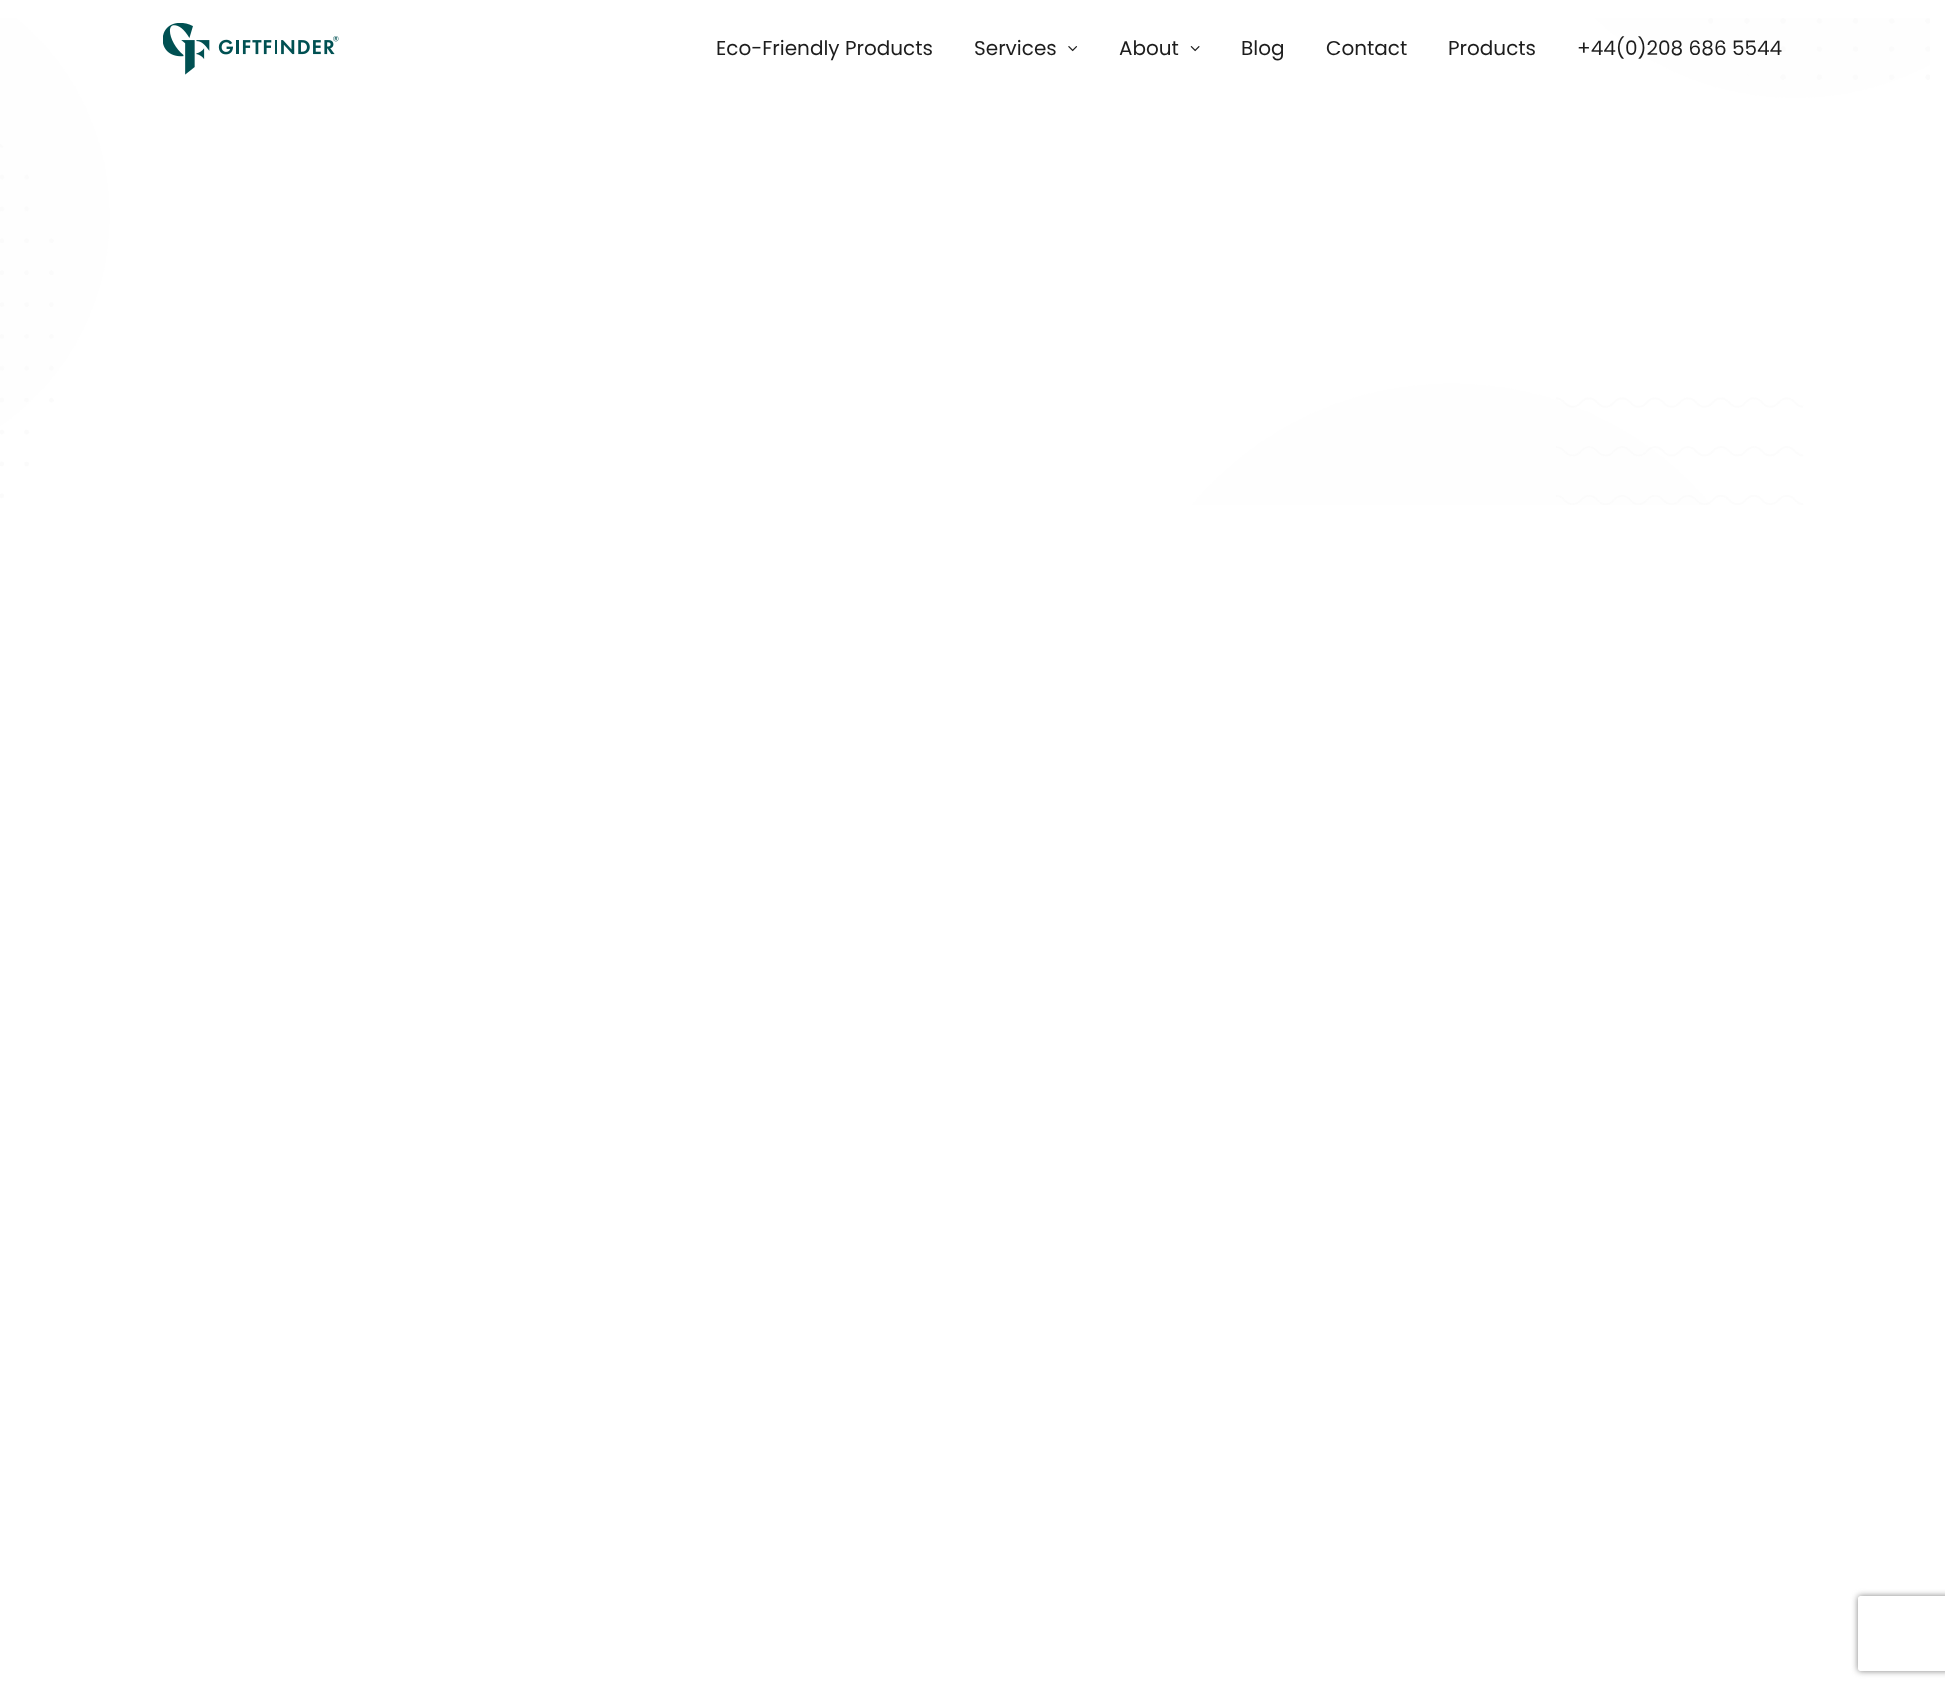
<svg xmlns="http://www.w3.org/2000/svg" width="1945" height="1688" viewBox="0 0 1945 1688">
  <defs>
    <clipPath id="clip1"><path d="M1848 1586H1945V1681H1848ZM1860.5 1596H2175.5C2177 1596 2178 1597 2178 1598.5V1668.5C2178 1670 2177 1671 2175.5 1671H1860.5C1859 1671 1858 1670 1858 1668.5V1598.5C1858 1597 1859 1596 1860.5 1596Z" clip-rule="evenodd"/></clipPath>
  </defs>
  <rect width="100%" height="100%" fill="#fff"/>
  <image x="0" y="18" width="1930" height="487" href="img/1.png"/>
  <image x="163" y="23" width="176" height="52" href="img/2.png"/>
  <image x="1068" y="46" width="10" height="6" href="img/3.png"/>
  <image x="1190" y="46" width="10" height="6" href="img/4.png"/>
  <g clip-path="url(#clip1)">
    <rect x="1858" y="1596" width="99" height="75" rx="2.5" fill="#808080" filter="blur(3px)"/>
  </g>
  <g font-family="Poppins" font-size="20" fill="#1d1d1d">
    <text x="716" y="55">Eco-Friendly Products</text>
    <text x="974" y="55">Services</text>
    <text x="1119" y="55">About</text>
    <text x="1241" y="55">Blog</text>
    <text x="1326" y="55">Contact</text>
    <text x="1448" y="55">Products</text>
    <text x="1577" y="55">+44(0)208 686 5544</text>
  </g>
</svg>
